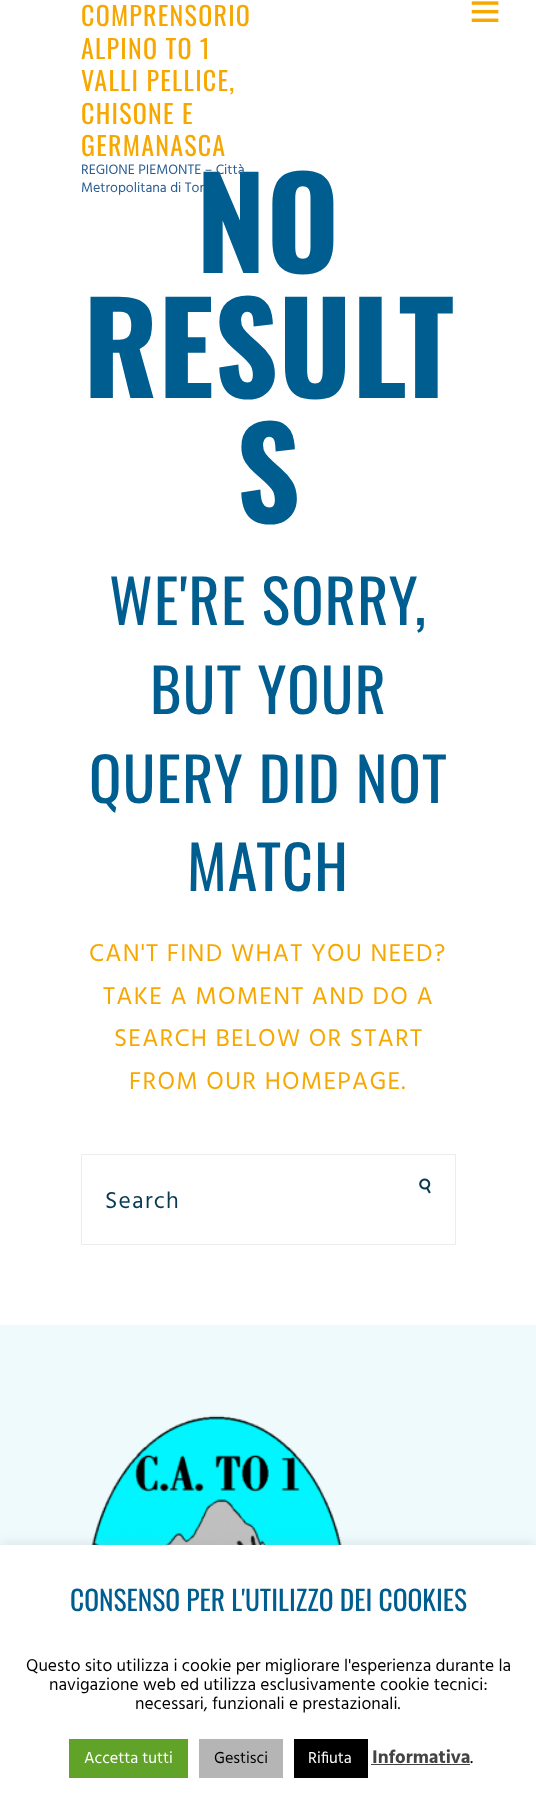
<svg xmlns="http://www.w3.org/2000/svg" width="536" height="1811" viewBox="0 0 536 1811">
  <rect width="100%" height="100%" fill="#fff"/>
  <image x="471" y="1" width="28" height="21" href="img/1.png"/>
  <path d="M81.5 1154.5h374v90H81.5z" fill="none" stroke="#edecec"/>
  <image x="419" y="1178" width="12" height="16" href="img/2.png"/>
  <path d="M0 1325h536v220H0z" fill="#effafd"/>
  <image x="91" y="1415" width="251" height="130" href="img/3.png"/>
  <path d="M0 1544h536v266H0z" fill="#acabab4d" filter="blur(6px)"/>
  <path d="M0 1545h536v266H0z" fill="#fff"/>
  <path d="M69 1739h119v39H69z" fill="#61a229"/>
  <path d="M199 1739h84v39H199z" fill="#b5b5b5"/>
  <path d="M294 1739h74v39H294z" fill="#000"/>
  <path d="M371 1764h99v1H371z" fill="#444"/>
  <g font-family="Oswald" font-size="26" letter-spacing="1.25" fill="#f7a800">
    <text x="81" y="26">COMPRENSORIO</text>
    <text x="81" y="59">ALPINO TO 1</text>
    <text x="81" y="91">VALLI PELLICE,</text>
    <text x="81" y="124">CHISONE E</text>
    <text x="81" y="156">GERMANASCA</text>
  </g>
  <text x="196" y="273" font-family="Oswald" font-size="125" font-weight="bold" fill="#005d8f">NO</text>
  <g font-family="Hind" font-size="14" fill="#295d90">
    <text x="81" y="192">Metropolitana di Tor</text>
    <text x="81" y="174">REGIONE PIEMONTE – Città</text>
  </g>
  <g font-family="Oswald" font-size="125" font-weight="bold" fill="#005d8f">
    <text x="83" y="398">RESULT</text>
    <text x="236" y="523">S</text>
  </g>
  <g font-family="Oswald" font-size="60" letter-spacing="1.25" fill="#005d8f">
    <text x="109" y="625">WE'RE SORRY,</text>
    <text x="150" y="714">BUT YOUR</text>
    <text x="89" y="803">QUERY DID NOT</text>
    <text x="187" y="891">MATCH</text>
  </g>
  <g font-family="Hind" font-size="25" letter-spacing="1.25" fill="#f7a800">
    <text x="89" y="961">CAN'T FIND WHAT YOU NEED?</text>
    <text x="103" y="1004">TAKE A MOMENT AND DO A</text>
    <text x="114" y="1046">SEARCH BELOW OR START</text>
    <text x="129" y="1089">FROM OUR HOMEPAGE.</text>
  </g>
  <text x="105" y="1208" font-family="Hind" font-size="23.5" letter-spacing="1.25" fill="#093a54">Search</text>
  <text x="70" y="1611" font-family="Oswald" font-size="27.5" fill="#005d8f">CONSENSO PER L'UTILIZZO DEI COOKIES</text>
  <g font-family="Hind" font-size="17.5" fill="#000">
    <text x="26" y="1671">Questo sito utilizza i cookie per migliorare l'esperienza durante la</text>
    <text x="49" y="1690">navigazione web ed utilizza esclusivamente cookie tecnici:</text>
    <text x="135" y="1709">necessari, funzionali e prestazionali.</text>
  </g>
  <text x="84" y="1763" font-family="Hind" font-size="16.25" fill="#fff">Accetta tutti</text>
  <text x="214" y="1763" font-family="Hind" font-size="16.25" fill="#000">Gestisci</text>
  <text x="308" y="1763" font-family="Hind" font-size="16.25" fill="#fff">Rifiuta</text>
  <text x="372" y="1763" font-family="Hind" font-size="18.75" font-weight="bold" fill="#444">Informativa</text>
  <text x="470" y="1763" font-family="Hind" font-size="18.75" fill="#000">.</text>
</svg>
